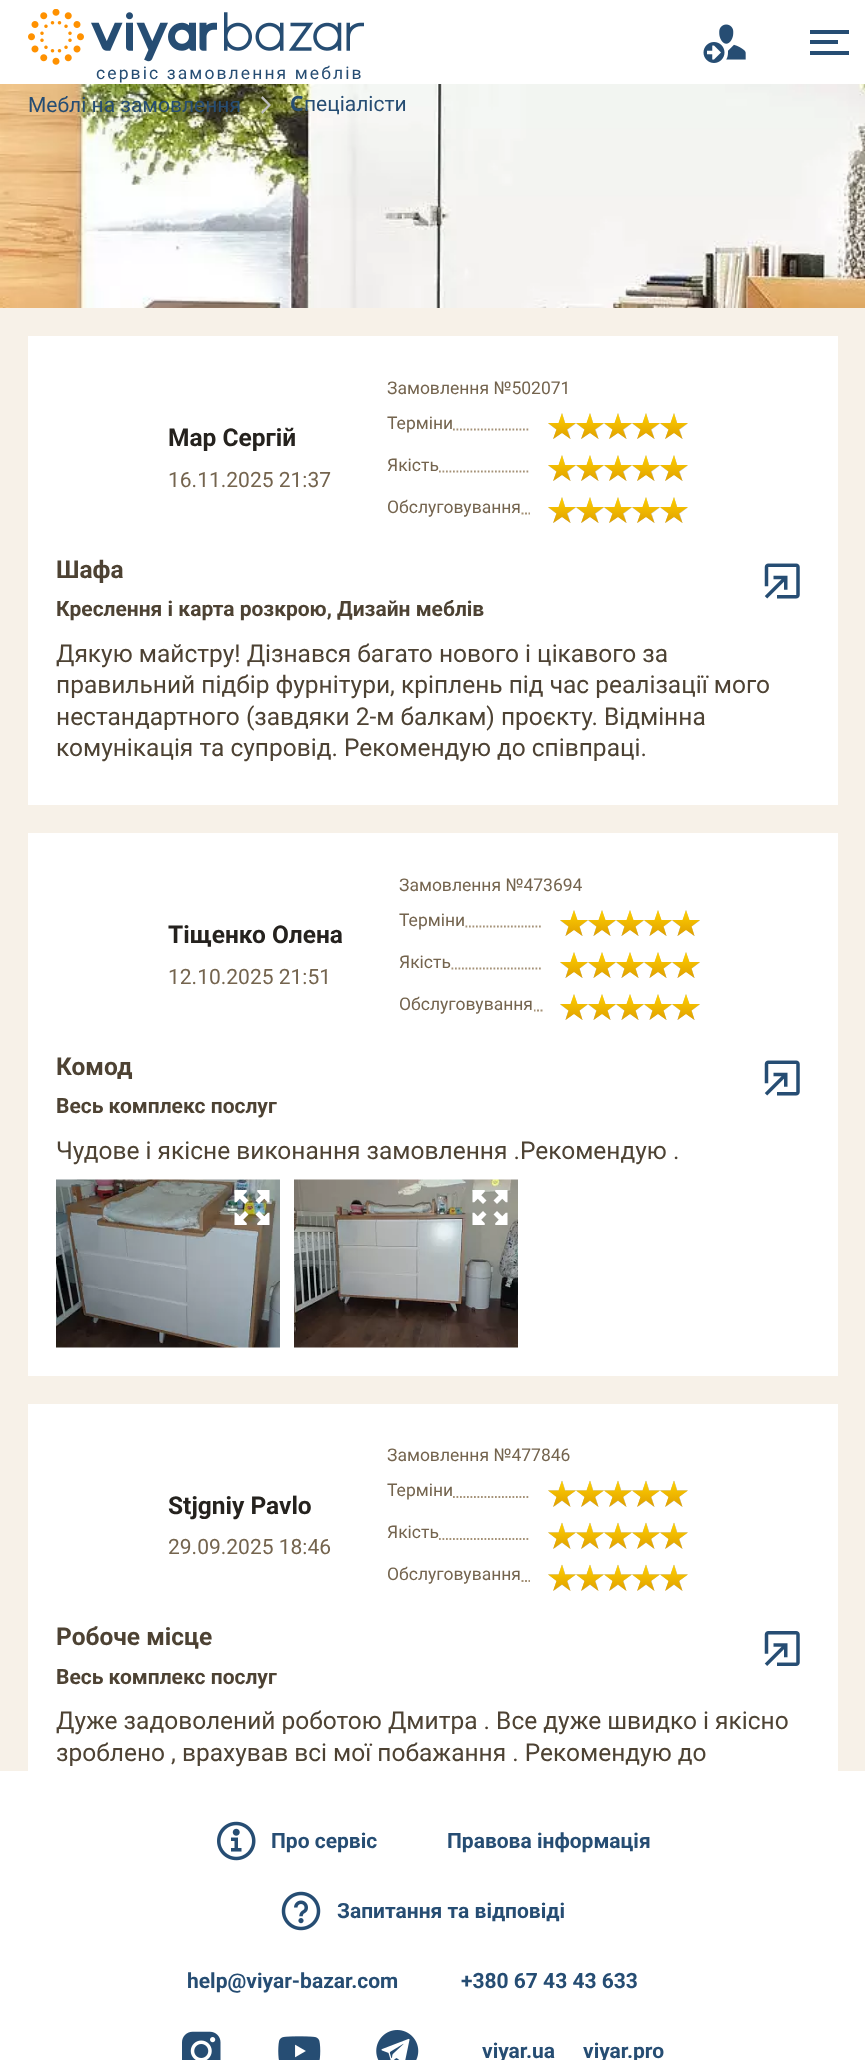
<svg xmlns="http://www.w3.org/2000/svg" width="865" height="2060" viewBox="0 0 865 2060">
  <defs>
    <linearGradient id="g1" gradientUnits="userSpaceOnUse" x1="674" y1="413" x2="674" y2="439"><stop offset="0" stop-color="#ffd000"/><stop offset="1" stop-color="#e0a000"/></linearGradient>
    <linearGradient id="g2" gradientUnits="userSpaceOnUse" x1="646" y1="413" x2="646" y2="439"><stop offset="0" stop-color="#ffd000"/><stop offset="1" stop-color="#e0a000"/></linearGradient>
    <linearGradient id="g3" gradientUnits="userSpaceOnUse" x1="618" y1="413" x2="618" y2="439"><stop offset="0" stop-color="#ffd000"/><stop offset="1" stop-color="#e0a000"/></linearGradient>
    <linearGradient id="g4" gradientUnits="userSpaceOnUse" x1="590" y1="413" x2="590" y2="439"><stop offset="0" stop-color="#ffd000"/><stop offset="1" stop-color="#e0a000"/></linearGradient>
    <linearGradient id="g5" gradientUnits="userSpaceOnUse" x1="562" y1="413" x2="562" y2="439"><stop offset="0" stop-color="#ffd000"/><stop offset="1" stop-color="#e0a000"/></linearGradient>
    <linearGradient id="g6" gradientUnits="userSpaceOnUse" x1="674" y1="455" x2="674" y2="481"><stop offset="0" stop-color="#ffd000"/><stop offset="1" stop-color="#e0a000"/></linearGradient>
    <linearGradient id="g7" gradientUnits="userSpaceOnUse" x1="646" y1="455" x2="646" y2="481"><stop offset="0" stop-color="#ffd000"/><stop offset="1" stop-color="#e0a000"/></linearGradient>
    <linearGradient id="g8" gradientUnits="userSpaceOnUse" x1="618" y1="455" x2="618" y2="481"><stop offset="0" stop-color="#ffd000"/><stop offset="1" stop-color="#e0a000"/></linearGradient>
    <linearGradient id="g9" gradientUnits="userSpaceOnUse" x1="590" y1="455" x2="590" y2="481"><stop offset="0" stop-color="#ffd000"/><stop offset="1" stop-color="#e0a000"/></linearGradient>
    <linearGradient id="g10" gradientUnits="userSpaceOnUse" x1="562" y1="455" x2="562" y2="481"><stop offset="0" stop-color="#ffd000"/><stop offset="1" stop-color="#e0a000"/></linearGradient>
    <linearGradient id="g11" gradientUnits="userSpaceOnUse" x1="674" y1="497" x2="674" y2="523"><stop offset="0" stop-color="#ffd000"/><stop offset="1" stop-color="#e0a000"/></linearGradient>
    <linearGradient id="g12" gradientUnits="userSpaceOnUse" x1="646" y1="497" x2="646" y2="523"><stop offset="0" stop-color="#ffd000"/><stop offset="1" stop-color="#e0a000"/></linearGradient>
    <linearGradient id="g13" gradientUnits="userSpaceOnUse" x1="618" y1="497" x2="618" y2="523"><stop offset="0" stop-color="#ffd000"/><stop offset="1" stop-color="#e0a000"/></linearGradient>
    <linearGradient id="g14" gradientUnits="userSpaceOnUse" x1="590" y1="497" x2="590" y2="523"><stop offset="0" stop-color="#ffd000"/><stop offset="1" stop-color="#e0a000"/></linearGradient>
    <linearGradient id="g15" gradientUnits="userSpaceOnUse" x1="562" y1="497" x2="562" y2="523"><stop offset="0" stop-color="#ffd000"/><stop offset="1" stop-color="#e0a000"/></linearGradient>
    <linearGradient id="g16" gradientUnits="userSpaceOnUse" x1="686" y1="910" x2="686" y2="936"><stop offset="0" stop-color="#ffd000"/><stop offset="1" stop-color="#e0a000"/></linearGradient>
    <linearGradient id="g17" gradientUnits="userSpaceOnUse" x1="658" y1="910" x2="658" y2="936"><stop offset="0" stop-color="#ffd000"/><stop offset="1" stop-color="#e0a000"/></linearGradient>
    <linearGradient id="g18" gradientUnits="userSpaceOnUse" x1="630" y1="910" x2="630" y2="936"><stop offset="0" stop-color="#ffd000"/><stop offset="1" stop-color="#e0a000"/></linearGradient>
    <linearGradient id="g19" gradientUnits="userSpaceOnUse" x1="602" y1="910" x2="602" y2="936"><stop offset="0" stop-color="#ffd000"/><stop offset="1" stop-color="#e0a000"/></linearGradient>
    <linearGradient id="g20" gradientUnits="userSpaceOnUse" x1="574" y1="910" x2="574" y2="936"><stop offset="0" stop-color="#ffd000"/><stop offset="1" stop-color="#e0a000"/></linearGradient>
    <linearGradient id="g21" gradientUnits="userSpaceOnUse" x1="686" y1="952" x2="686" y2="978"><stop offset="0" stop-color="#ffd000"/><stop offset="1" stop-color="#e0a000"/></linearGradient>
    <linearGradient id="g22" gradientUnits="userSpaceOnUse" x1="658" y1="952" x2="658" y2="978"><stop offset="0" stop-color="#ffd000"/><stop offset="1" stop-color="#e0a000"/></linearGradient>
    <linearGradient id="g23" gradientUnits="userSpaceOnUse" x1="630" y1="952" x2="630" y2="978"><stop offset="0" stop-color="#ffd000"/><stop offset="1" stop-color="#e0a000"/></linearGradient>
    <linearGradient id="g24" gradientUnits="userSpaceOnUse" x1="602" y1="952" x2="602" y2="978"><stop offset="0" stop-color="#ffd000"/><stop offset="1" stop-color="#e0a000"/></linearGradient>
    <linearGradient id="g25" gradientUnits="userSpaceOnUse" x1="574" y1="952" x2="574" y2="978"><stop offset="0" stop-color="#ffd000"/><stop offset="1" stop-color="#e0a000"/></linearGradient>
    <linearGradient id="g26" gradientUnits="userSpaceOnUse" x1="686" y1="994" x2="686" y2="1020"><stop offset="0" stop-color="#ffd000"/><stop offset="1" stop-color="#e0a000"/></linearGradient>
    <linearGradient id="g27" gradientUnits="userSpaceOnUse" x1="658" y1="994" x2="658" y2="1020"><stop offset="0" stop-color="#ffd000"/><stop offset="1" stop-color="#e0a000"/></linearGradient>
    <linearGradient id="g28" gradientUnits="userSpaceOnUse" x1="630" y1="994" x2="630" y2="1020"><stop offset="0" stop-color="#ffd000"/><stop offset="1" stop-color="#e0a000"/></linearGradient>
    <linearGradient id="g29" gradientUnits="userSpaceOnUse" x1="602" y1="994" x2="602" y2="1020"><stop offset="0" stop-color="#ffd000"/><stop offset="1" stop-color="#e0a000"/></linearGradient>
    <linearGradient id="g30" gradientUnits="userSpaceOnUse" x1="574" y1="994" x2="574" y2="1020"><stop offset="0" stop-color="#ffd000"/><stop offset="1" stop-color="#e0a000"/></linearGradient>
    <linearGradient id="g31" gradientUnits="userSpaceOnUse" x1="674" y1="1481" x2="674" y2="1507"><stop offset="0" stop-color="#ffd000"/><stop offset="1" stop-color="#e0a000"/></linearGradient>
    <linearGradient id="g32" gradientUnits="userSpaceOnUse" x1="646" y1="1481" x2="646" y2="1507"><stop offset="0" stop-color="#ffd000"/><stop offset="1" stop-color="#e0a000"/></linearGradient>
    <linearGradient id="g33" gradientUnits="userSpaceOnUse" x1="618" y1="1481" x2="618" y2="1507"><stop offset="0" stop-color="#ffd000"/><stop offset="1" stop-color="#e0a000"/></linearGradient>
    <linearGradient id="g34" gradientUnits="userSpaceOnUse" x1="590" y1="1481" x2="590" y2="1507"><stop offset="0" stop-color="#ffd000"/><stop offset="1" stop-color="#e0a000"/></linearGradient>
    <linearGradient id="g35" gradientUnits="userSpaceOnUse" x1="562" y1="1481" x2="562" y2="1507"><stop offset="0" stop-color="#ffd000"/><stop offset="1" stop-color="#e0a000"/></linearGradient>
    <linearGradient id="g36" gradientUnits="userSpaceOnUse" x1="674" y1="1523" x2="674" y2="1549"><stop offset="0" stop-color="#ffd000"/><stop offset="1" stop-color="#e0a000"/></linearGradient>
    <linearGradient id="g37" gradientUnits="userSpaceOnUse" x1="646" y1="1523" x2="646" y2="1549"><stop offset="0" stop-color="#ffd000"/><stop offset="1" stop-color="#e0a000"/></linearGradient>
    <linearGradient id="g38" gradientUnits="userSpaceOnUse" x1="618" y1="1523" x2="618" y2="1549"><stop offset="0" stop-color="#ffd000"/><stop offset="1" stop-color="#e0a000"/></linearGradient>
    <linearGradient id="g39" gradientUnits="userSpaceOnUse" x1="590" y1="1523" x2="590" y2="1549"><stop offset="0" stop-color="#ffd000"/><stop offset="1" stop-color="#e0a000"/></linearGradient>
    <linearGradient id="g40" gradientUnits="userSpaceOnUse" x1="562" y1="1523" x2="562" y2="1549"><stop offset="0" stop-color="#ffd000"/><stop offset="1" stop-color="#e0a000"/></linearGradient>
    <linearGradient id="g41" gradientUnits="userSpaceOnUse" x1="674" y1="1565" x2="674" y2="1591"><stop offset="0" stop-color="#ffd000"/><stop offset="1" stop-color="#e0a000"/></linearGradient>
    <linearGradient id="g42" gradientUnits="userSpaceOnUse" x1="646" y1="1565" x2="646" y2="1591"><stop offset="0" stop-color="#ffd000"/><stop offset="1" stop-color="#e0a000"/></linearGradient>
    <linearGradient id="g43" gradientUnits="userSpaceOnUse" x1="618" y1="1565" x2="618" y2="1591"><stop offset="0" stop-color="#ffd000"/><stop offset="1" stop-color="#e0a000"/></linearGradient>
    <linearGradient id="g44" gradientUnits="userSpaceOnUse" x1="590" y1="1565" x2="590" y2="1591"><stop offset="0" stop-color="#ffd000"/><stop offset="1" stop-color="#e0a000"/></linearGradient>
    <linearGradient id="g45" gradientUnits="userSpaceOnUse" x1="562" y1="1565" x2="562" y2="1591"><stop offset="0" stop-color="#ffd000"/><stop offset="1" stop-color="#e0a000"/></linearGradient>
  </defs>
  <rect width="100%" height="100%" fill="#fff"/>
  <image x="703" y="24" width="43" height="39" href="img/1.png"/>
  <path d="M810 30h39v4H810z" fill="#264d73"/>
  <path d="M810 40h28v4H810z" fill="#264d73"/>
  <path d="M810 51h39v4H810z" fill="#264d73"/>
  <image x="28" y="9" width="336" height="56" href="img/2.png"/>
  <image x="0" y="84" width="865" height="224" href="img/3.png"/>
  <path d="M262.5 96L261 98L268 105L261 112L262.5 114L271 105Z" fill="#c0c0c0"/>
  <path d="M0 308h865v1463H0z" fill="#f7f1e8"/>
  <path d="M28 336h810v469H28z" fill="#fff"/>
  <path d="M453 429.5H530" fill="none" stroke="#a59278" stroke-width="1.8" stroke-dasharray="1.75 1.75"/>
  <image x="548" y="413" width="140" height="26" href="img/4.png"/>
  <path d="M674 413L677 423H688L679 429.5L682.5 439L674 433L665 439L668.5 429.5L660 423H670.5Z" fill="url(#g1)"/>
  <path d="M646 413L649 423H660L651 429.5L654.5 439L646 433L637 439L640.5 429.5L632 423H642.5Z" fill="url(#g2)"/>
  <path d="M618 413L621 423H632L623 429.5L626.5 439L618 433L609 439L612.5 429.5L604 423H614.5Z" fill="url(#g3)"/>
  <path d="M590 413L593 423H604L595 429.5L598.5 439L590 433L581 439L584.5 429.5L576 423H586.5Z" fill="url(#g4)"/>
  <path d="M562 413L565 423H576L567 429.5L570.5 439L562 433L553 439L556.5 429.5L548 423H558.5Z" fill="url(#g5)"/>
  <path d="M439 471.5H530" fill="none" stroke="#a59278" stroke-width="1.8" stroke-dasharray="1.75 1.75"/>
  <image x="548" y="455" width="140" height="26" href="img/4.png"/>
  <path d="M674 455L677 465H688L679 471.5L682.5 481L674 475L665 481L668.5 471.5L660 465H670.5Z" fill="url(#g6)"/>
  <path d="M646 455L649 465H660L651 471.5L654.5 481L646 475L637 481L640.5 471.5L632 465H642.5Z" fill="url(#g7)"/>
  <path d="M618 455L621 465H632L623 471.5L626.5 481L618 475L609 481L612.5 471.5L604 465H614.5Z" fill="url(#g8)"/>
  <path d="M590 455L593 465H604L595 471.5L598.5 481L590 475L581 481L584.5 471.5L576 465H586.5Z" fill="url(#g9)"/>
  <path d="M562 455L565 465H576L567 471.5L570.5 481L562 475L553 481L556.5 471.5L548 465H558.5Z" fill="url(#g10)"/>
  <path d="M521.5 513.5H523.5M525 513.5H527M528.5 513.5H530" fill="none" stroke="#a59278" stroke-width="1.8"/>
  <image x="548" y="497" width="140" height="26" href="img/4.png"/>
  <path d="M674 497L677 507H688L679 513.5L682.5 523L674 517L665 523L668.5 513.5L660 507H670.5Z" fill="url(#g11)"/>
  <path d="M646 497L649 507H660L651 513.5L654.5 523L646 517L637 523L640.5 513.5L632 507H642.5Z" fill="url(#g12)"/>
  <path d="M618 497L621 507H632L623 513.5L626.5 523L618 517L609 523L612.5 513.5L604 507H614.5Z" fill="url(#g13)"/>
  <path d="M590 497L593 507H604L595 513.5L598.5 523L590 517L581 523L584.5 513.5L576 507H586.5Z" fill="url(#g14)"/>
  <path d="M562 497L565 507H576L567 513.5L570.5 523L562 517L553 523L556.5 513.5L548 507H558.5Z" fill="url(#g15)"/>
  <image x="764" y="563" width="36" height="36" href="img/5.png"/>
  <path d="M28 833h810v543H28z" fill="#fff"/>
  <path d="M465.5 926.5H542.5" fill="none" stroke="#a59278" stroke-width="1.8" stroke-dasharray="1.75 1.75"/>
  <image x="560" y="910" width="140" height="26" href="img/6.png"/>
  <path d="M686 910L689.5 920H700L691.5 926.5L694.5 936L686 930L677.5 936L680.5 926.5L672 920H682.5Z" fill="url(#g16)"/>
  <path d="M658 910L661.5 920H672L663.5 926.5L666.5 936L658 930L649.5 936L652.5 926.5L644 920H654.5Z" fill="url(#g17)"/>
  <path d="M630 910L633.5 920H644L635.5 926.5L638.5 936L630 930L621.5 936L624.5 926.5L616 920H626.5Z" fill="url(#g18)"/>
  <path d="M602 910L605.5 920H616L607.5 926.5L610.5 936L602 930L593.5 936L596.5 926.5L588 920H598.5Z" fill="url(#g19)"/>
  <path d="M574 910L577.5 920H588L579.5 926.5L582.5 936L574 930L565.5 936L568.5 926.5L560 920H570.5Z" fill="url(#g20)"/>
  <path d="M451.5 968.5H542.5" fill="none" stroke="#a59278" stroke-width="1.8" stroke-dasharray="1.75 1.75"/>
  <image x="560" y="952" width="140" height="26" href="img/6.png"/>
  <path d="M686 952L689.5 962H700L691.5 968.5L694.5 978L686 972L677.5 978L680.5 968.5L672 962H682.5Z" fill="url(#g21)"/>
  <path d="M658 952L661.5 962H672L663.5 968.5L666.5 978L658 972L649.5 978L652.5 968.5L644 962H654.5Z" fill="url(#g22)"/>
  <path d="M630 952L633.5 962H644L635.5 968.5L638.5 978L630 972L621.5 978L624.5 968.5L616 962H626.5Z" fill="url(#g23)"/>
  <path d="M602 952L605.5 962H616L607.5 968.5L610.5 978L602 972L593.5 978L596.5 968.5L588 962H598.5Z" fill="url(#g24)"/>
  <path d="M574 952L577.5 962H588L579.5 968.5L582.5 978L574 972L565.5 978L568.5 968.5L560 962H570.5Z" fill="url(#g25)"/>
  <path d="M534 1010.5H535.5M537 1010.5H539M540.5 1010.5H542.5" fill="none" stroke="#a59278" stroke-width="1.8"/>
  <image x="560" y="994" width="140" height="26" href="img/6.png"/>
  <path d="M686 994L689.5 1004H700L691.5 1010.5L694.5 1020L686 1014L677.5 1020L680.5 1010.5L672 1004H682.5Z" fill="url(#g26)"/>
  <path d="M658 994L661.5 1004H672L663.5 1010.5L666.5 1020L658 1014L649.5 1020L652.5 1010.5L644 1004H654.5Z" fill="url(#g27)"/>
  <path d="M630 994L633.5 1004H644L635.5 1010.5L638.5 1020L630 1014L621.5 1020L624.5 1010.5L616 1004H626.5Z" fill="url(#g28)"/>
  <path d="M602 994L605.5 1004H616L607.5 1010.5L610.5 1020L602 1014L593.5 1020L596.5 1010.5L588 1004H598.5Z" fill="url(#g29)"/>
  <path d="M574 994L577.5 1004H588L579.5 1010.5L582.5 1020L574 1014L565.5 1020L568.5 1010.5L560 1004H570.5Z" fill="url(#g30)"/>
  <image x="764" y="1060" width="36" height="36" href="img/5.png"/>
  <image x="56" y="1179" width="224" height="169" href="img/7.png"/>
  <image x="234" y="1190" width="36" height="35" href="img/8.png"/>
  <image x="294" y="1179" width="224" height="169" href="img/9.png"/>
  <image x="472" y="1190" width="36" height="35" href="img/10.png"/>
  <path d="M28 1404h810v367H28z" fill="#fff"/>
  <path d="M453 1497H530" fill="none" stroke="#a59278" stroke-width="1.8" stroke-dasharray="1.75 1.75"/>
  <image x="548" y="1481" width="140" height="26" href="img/11.png"/>
  <path d="M674 1480.5L677 1490.5H688L679 1497L682.5 1507L674 1500.5L665 1507L668.5 1497L660 1490.5H670.5Z" fill="url(#g31)"/>
  <path d="M646 1480.5L649 1490.5H660L651 1497L654.5 1507L646 1500.5L637 1507L640.5 1497L632 1490.5H642.5Z" fill="url(#g32)"/>
  <path d="M618 1480.5L621 1490.5H632L623 1497L626.5 1507L618 1500.5L609 1507L612.5 1497L604 1490.5H614.5Z" fill="url(#g33)"/>
  <path d="M590 1480.5L593 1490.5H604L595 1497L598.5 1507L590 1500.5L581 1507L584.5 1497L576 1490.5H586.5Z" fill="url(#g34)"/>
  <path d="M562 1480.5L565 1490.5H576L567 1497L570.5 1507L562 1500.5L553 1507L556.5 1497L548 1490.5H558.5Z" fill="url(#g35)"/>
  <path d="M439 1539H530" fill="none" stroke="#a59278" stroke-width="1.8" stroke-dasharray="1.75 1.75"/>
  <image x="548" y="1523" width="140" height="26" href="img/11.png"/>
  <path d="M674 1522.5L677 1532.5H688L679 1539L682.5 1549L674 1542.5L665 1549L668.5 1539L660 1532.5H670.5Z" fill="url(#g36)"/>
  <path d="M646 1522.5L649 1532.5H660L651 1539L654.5 1549L646 1542.5L637 1549L640.5 1539L632 1532.5H642.5Z" fill="url(#g37)"/>
  <path d="M618 1522.5L621 1532.5H632L623 1539L626.5 1549L618 1542.5L609 1549L612.5 1539L604 1532.5H614.5Z" fill="url(#g38)"/>
  <path d="M590 1522.5L593 1532.5H604L595 1539L598.5 1549L590 1542.5L581 1549L584.5 1539L576 1532.5H586.5Z" fill="url(#g39)"/>
  <path d="M562 1522.5L565 1532.5H576L567 1539L570.5 1549L562 1542.5L553 1549L556.5 1539L548 1532.5H558.5Z" fill="url(#g40)"/>
  <path d="M521.5 1581H523.5M525 1581H527M528.5 1581H530" fill="none" stroke="#a59278" stroke-width="1.8"/>
  <image x="548" y="1565" width="140" height="26" href="img/11.png"/>
  <path d="M674 1564.5L677 1574.5H688L679 1581L682.5 1591L674 1584.5L665 1591L668.5 1581L660 1574.5H670.5Z" fill="url(#g41)"/>
  <path d="M646 1564.5L649 1574.5H660L651 1581L654.5 1591L646 1584.5L637 1591L640.5 1581L632 1574.5H642.5Z" fill="url(#g42)"/>
  <path d="M618 1564.5L621 1574.5H632L623 1581L626.5 1591L618 1584.5L609 1591L612.5 1581L604 1574.5H614.5Z" fill="url(#g43)"/>
  <path d="M590 1564.5L593 1574.5H604L595 1581L598.5 1591L590 1584.5L581 1591L584.5 1581L576 1574.5H586.5Z" fill="url(#g44)"/>
  <path d="M562 1564.5L565 1574.5H576L567 1581L570.5 1591L562 1584.5L553 1591L556.5 1581L548 1574.5H558.5Z" fill="url(#g45)"/>
  <image x="764" y="1631" width="36" height="35" href="img/12.png"/>
  <image x="217" y="1821" width="39" height="40" href="img/13.png"/>
  <image x="281" y="1891" width="40" height="40" href="img/14.png"/>
  <image x="182" y="2031" width="39" height="29" href="img/15.png"/>
  <image x="278" y="2036" width="43" height="24" href="img/16.png"/>
  <image x="376" y="2030" width="43" height="30" href="img/17.png"/>
  <text x="96" y="79" font-family="Roboto" font-size="17.5" letter-spacing="2.1" fill="#264d73">сервіс замовлення меблів</text>
  <text x="28" y="112" font-family="Roboto" font-size="21" fill="#264d73">Меблі на замовлення</text>
  <text x="290" y="111" font-family="Noto Sans" font-size="21" font-weight="bold" fill="#264d73">С</text>
  <text x="304" y="111" font-family="Roboto" font-size="21" fill="#264d73">пеціалісти</text>
  <text x="168" y="446" font-family="Roboto" font-size="24.5" font-weight="bold" fill="#25221e">Мар Сергій</text>
  <text x="168" y="487" font-family="Roboto" font-size="21" fill="#74644e">16.11.2025 21:37</text>
  <g font-family="Roboto" font-size="17.5" fill="#74644e">
    <text x="387" y="394">Замовлення №502071</text>
    <text x="387" y="429">Терміни</text>
    <text x="387" y="471">Якість</text>
    <text x="387" y="513">Обслуговування</text>
  </g>
  <text x="56" y="578" font-family="Roboto" font-size="24.5" font-weight="bold" fill="#4d4233">Шафа</text>
  <text x="56" y="616" font-family="Roboto" font-size="21" font-weight="bold" fill="#4d4233">Креслення і карта розкрою, Дизайн меблів</text>
  <g font-family="Roboto" font-size="24.5" fill="#4d4233">
    <text x="56" y="662">Дякую майстру! Дізнався багато нового і цікавого за</text>
    <text x="56" y="693">правильний підбір фурнітури, кріплень під час реалізації мого</text>
    <text x="56" y="725">нестандартного (завдяки 2-м балкам) проєкту. Відмінна</text>
    <text x="56" y="756">комунікація та супровід. Рекомендую до співпраці.</text>
  </g>
  <text x="168" y="943" font-family="Roboto" font-size="24.5" font-weight="bold" fill="#25221e">Тіщенко Олена</text>
  <text x="168" y="984" font-family="Roboto" font-size="21" fill="#74644e">12.10.2025 21:51</text>
  <g font-family="Roboto" font-size="17.5" fill="#74644e">
    <text x="399" y="891">Замовлення №473694</text>
    <text x="399" y="926">Терміни</text>
    <text x="399" y="968">Якість</text>
    <text x="399" y="1010">Обслуговування</text>
  </g>
  <text x="56" y="1075" font-family="Roboto" font-size="24.5" font-weight="bold" fill="#4d4233">Комод</text>
  <text x="56" y="1113" font-family="Roboto" font-size="21" font-weight="bold" fill="#4d4233">Весь комплекс послуг</text>
  <text x="56" y="1159" font-family="Roboto" font-size="24.5" fill="#4d4233">Чудове і якісне виконання замовлення .Рекомендую .</text>
  <text x="168" y="1514" font-family="Roboto" font-size="24.5" font-weight="bold" fill="#25221e">Stjgniy Pavlo</text>
  <text x="168" y="1554" font-family="Roboto" font-size="21" fill="#74644e">29.09.2025 18:46</text>
  <g font-family="Roboto" font-size="17.5" fill="#74644e">
    <text x="387" y="1461">Замовлення №477846</text>
    <text x="387" y="1496">Терміни</text>
    <text x="387" y="1538">Якість</text>
    <text x="387" y="1580">Обслуговування</text>
  </g>
  <text x="56" y="1645" font-family="Roboto" font-size="24.5" font-weight="bold" fill="#4d4233">Робоче місце</text>
  <text x="56" y="1684" font-family="Roboto" font-size="21" font-weight="bold" fill="#4d4233">Весь комплекс послуг</text>
  <g font-family="Roboto" font-size="24.5" fill="#4d4233">
    <text x="56" y="1729">Дуже задоволений роботою Дмитра . Все дуже швидко і якісно</text>
    <text x="56" y="1761">зроблено , врахував всі мої побажання . Рекомендую до</text>
  </g>
  <g font-family="Roboto" font-size="21" font-weight="bold" fill="#264d73">
    <text x="271" y="1848">Про сервіс</text>
    <text x="447" y="1848">Правова інформація</text>
    <text x="337" y="1918">Запитання та відповіді</text>
    <text x="187" y="1988">help@viyar-bazar.com</text>
    <text x="461" y="1988">+380 67 43 43 633</text>
    <text x="482" y="2058">viyar.ua</text>
    <text x="583" y="2058">viyar.pro</text>
  </g>
</svg>
